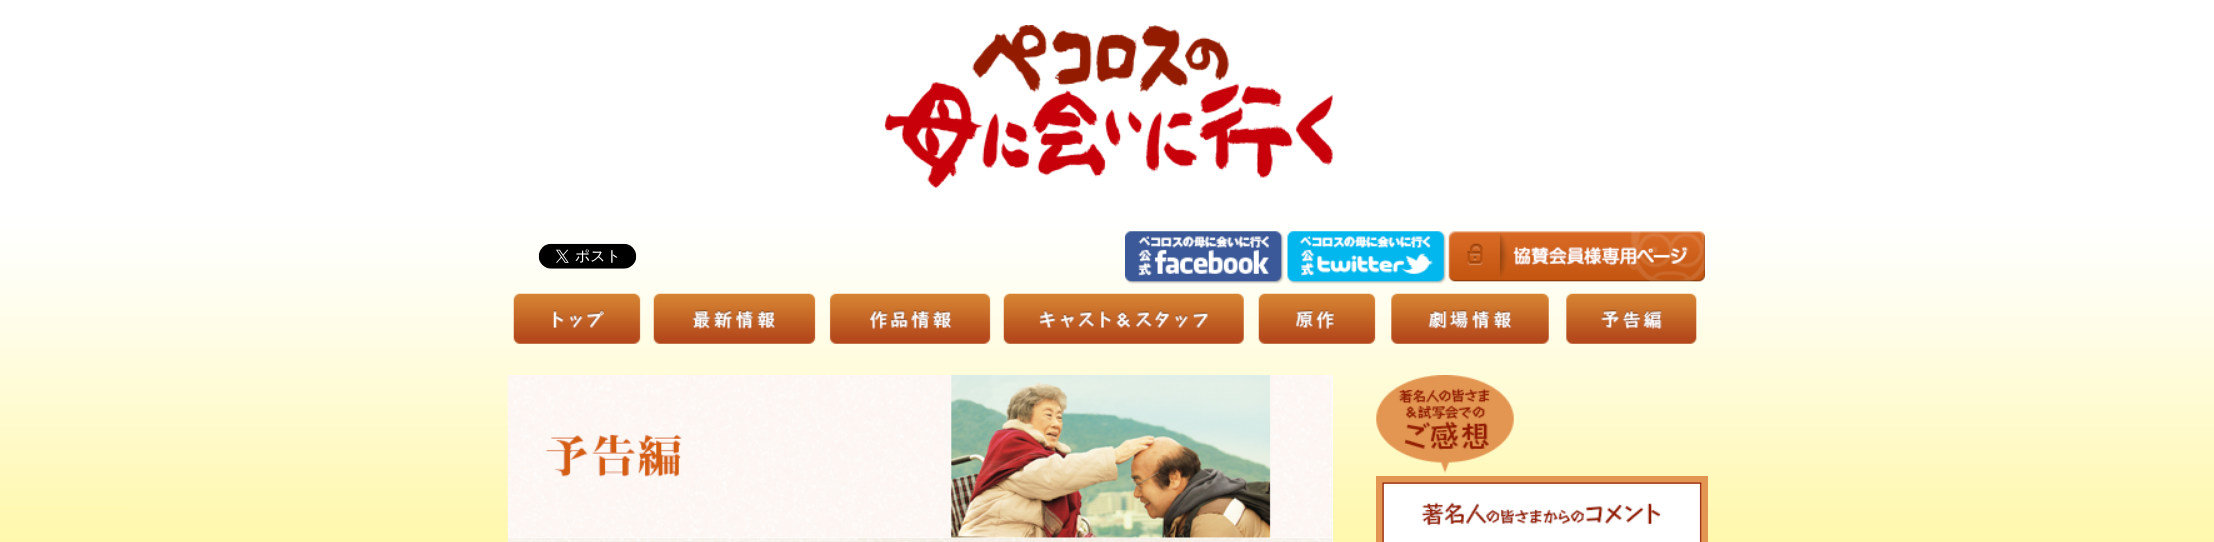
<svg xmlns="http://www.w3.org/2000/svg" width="2214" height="542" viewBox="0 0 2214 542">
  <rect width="100%" height="100%" fill="#fff"/>
  <image x="0" y="0" width="2214" height="542" href="img/1.png"/>
  <image x="884" y="25" width="449" height="163" href="img/2.png"/>
  <image x="538" y="243" width="99" height="26" href="img/3.png"/>
  <image x="1125" y="231" width="159" height="53" href="img/4.png"/>
  <image x="1287" y="231" width="159" height="53" href="img/5.png"/>
  <image x="1448" y="231" width="257" height="51" href="img/6.png"/>
  <image x="513" y="293" width="128" height="51" href="img/7.png"/>
  <image x="653" y="293" width="163" height="51" href="img/8.png"/>
  <image x="829" y="293" width="162" height="51" href="img/9.png"/>
  <image x="1003" y="293" width="241" height="51" href="img/10.png"/>
  <image x="1258" y="293" width="118" height="51" href="img/11.png"/>
  <image x="1391" y="293" width="158" height="51" href="img/12.png"/>
  <image x="1566" y="293" width="131" height="51" href="img/13.png"/>
  <path d="M1332 538h1v4H1332z" fill="#fff"/>
  <image x="507" y="537" width="826" height="5" href="img/14.png"/>
  <path d="M508 375h825v163H508z" fill="#fff"/>
  <image x="507" y="375" width="826" height="163" href="img/15.png"/>
  <image x="1376" y="375" width="138" height="98" href="img/16.png"/>
  <path d="M1376 476h332v66H1376z" fill="#e39552"/>
  <image x="1382" y="482" width="320" height="60" href="img/17.png"/>
</svg>
